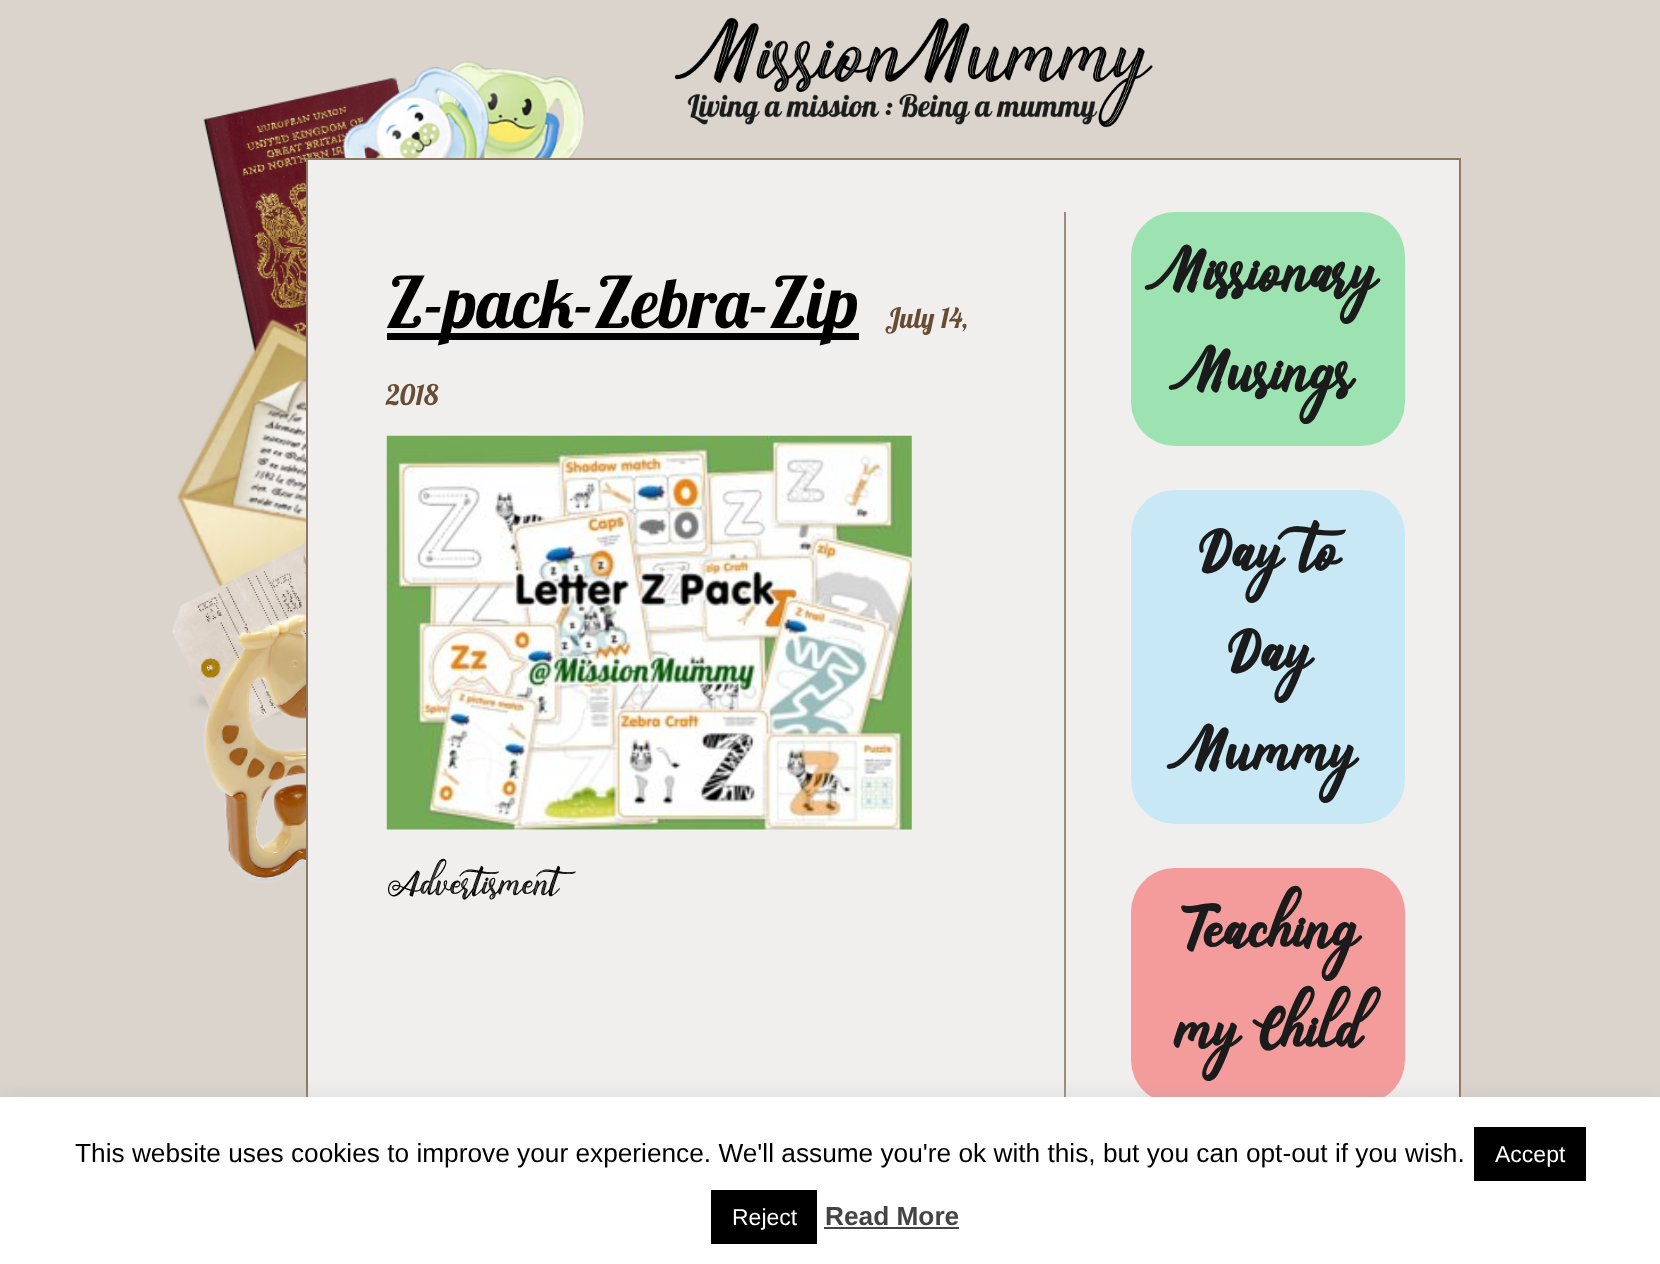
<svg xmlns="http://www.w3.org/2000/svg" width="1660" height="1264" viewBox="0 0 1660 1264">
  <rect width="100%" height="100%" fill="#dad4cd"/>
  <image x="674" y="18" width="479" height="110" href="img/1.png"/>
  <image x="172" y="61" width="413" height="822" href="img/2.png"/>
  <path d="M308 160h1151v937H308z" fill="#f1efed"/>
  <path d="M307 159h1153v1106H307z" fill="none" stroke="#8d7864" stroke-width="2"/>
  <path d="M1064 212h2v885H1064z" fill="#9d8c7b"/>
  <path d="M387 333h472v7H387z" fill="#000"/>
  <image x="386" y="435" width="526" height="395" href="img/3.png"/>
  <rect x="1131" y="212" width="274" height="234" rx="44" fill="#9ce3b1"/>
  <rect x="1131" y="490" width="274" height="334" rx="44" fill="#c9e8f6"/>
  <rect x="1131" y="868" width="274" height="236" rx="44" fill="#f49c9c"/>
  <path d="M0 1096h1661v168H0z" fill="#acabab4d" filter="blur(9px)"/>
  <path d="M0 1097h1660v167H0z" fill="#fff"/>
  <path d="M1474 1127h112v54H1474z" fill="#000"/>
  <path d="M711 1190h106v54H711z" fill="#000"/>
  <path d="M824 1227h135v2H824z" fill="#444"/>
  <text x="386" y="328" font-family="Lobster" font-size="70" fill="#000">Z-pack-Zebra-Zip</text>
  <g font-family="Lobster" font-size="28" fill="#674d33">
    <text x="885" y="328">July 14,</text>
    <text x="386" y="405">2018</text>
  </g>
  <text x="386" y="894" font-family="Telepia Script" font-size="42" fill="#000">Advertisment</text>
  <g font-family="Telepia Script" font-size="70" font-weight="bold" fill="#1b1b1b">
    <text x="1160" y="290">Missionary</text>
    <text x="1184" y="390">Musings</text>
    <text x="1197" y="569">Day to</text>
    <text x="1226" y="669">Day</text>
    <text x="1182" y="769">Mummy</text>
    <text x="1179" y="947">Teaching</text>
    <text x="1175" y="1047">my Child</text>
  </g>
  <text x="75" y="1162" font-family="Liberation Sans" font-size="26.25" fill="#000">This website uses cookies to improve your experience. We'll assume you're ok with this, but you can opt-out if you wish.</text>
  <g font-family="Liberation Sans" font-size="23" fill="#fff">
    <text x="1495" y="1162">Accept</text>
    <text x="732" y="1225">Reject</text>
  </g>
  <text x="825" y="1225" font-family="Liberation Sans" font-size="26.25" font-weight="bold" fill="#444">Read More</text>
</svg>
